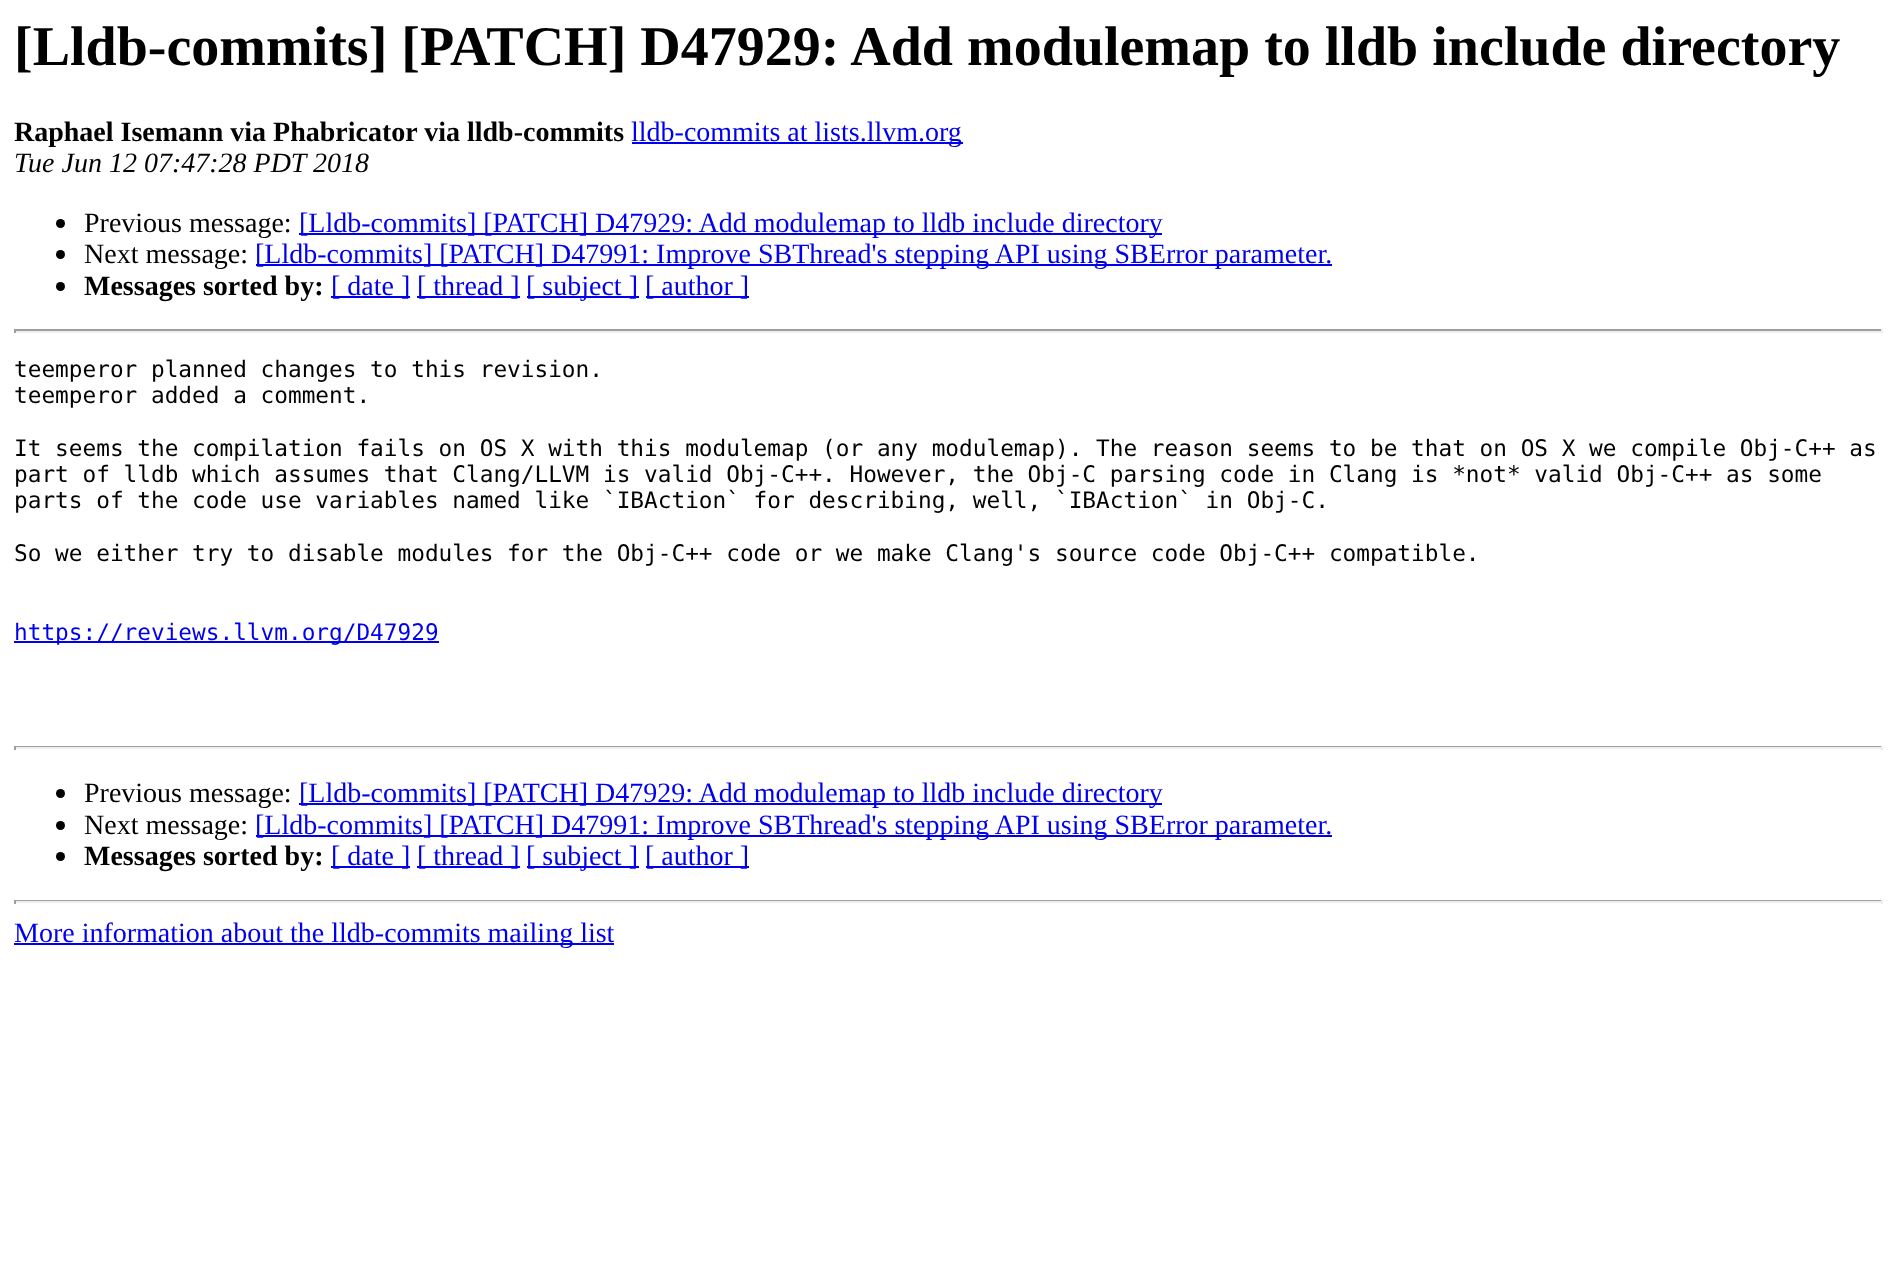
<svg xmlns="http://www.w3.org/2000/svg" width="1896" height="1283" viewBox="0 0 1896 1283">
  <rect width="100%" height="100%" fill="#fff"/>
  <path d="M632 142h331v2H632z" fill="#00e"/>
  <circle cx="60.5" cy="223.5" r="4.5" fill="#000"/>
  <path d="M299 233h863v2H299z" fill="#00e"/>
  <circle cx="60.5" cy="254.5" r="4.5" fill="#000"/>
  <path d="M256 264h1076v2H256z" fill="#00e"/>
  <circle cx="60.5" cy="286.5" r="4.5" fill="#000"/>
  <path d="M331 296h79v2H331z" fill="#00e"/>
  <path d="M417 296h103v2H417z" fill="#00e"/>
  <path d="M527 296h112v2H527z" fill="#00e"/>
  <path d="M646 296h103v2H646z" fill="#00e"/>
  <path d="M14 329h1869v2H14z" fill="#9f9f9f"/>
  <path d="M1881 329h2v4H1881z" fill="#eee"/>
  <path d="M14 331h1869v2H14z" fill="#eee"/>
  <path d="M14 329h2v4H14z" fill="#9f9f9f"/>
  <path d="M14 641h425v2H14z" fill="#00e"/>
  <path d="M14 746h1869v1H14z" fill="#9f9f9f"/>
  <path d="M1881 746h2v4H1881z" fill="#eee"/>
  <path d="M14 747h1869v2H14z" fill="#eee"/>
  <path d="M14 746h2v4H14z" fill="#9f9f9f"/>
  <circle cx="60.5" cy="793.5" r="4.5" fill="#000"/>
  <path d="M299 803h863v2H299z" fill="#00e"/>
  <circle cx="60.5" cy="825.5" r="4.5" fill="#000"/>
  <path d="M256 835h1076v2H256z" fill="#00e"/>
  <circle cx="60.5" cy="856.5" r="4.5" fill="#000"/>
  <path d="M331 866h79v2H331z" fill="#00e"/>
  <path d="M417 866h103v2H417z" fill="#00e"/>
  <path d="M527 866h112v2H527z" fill="#00e"/>
  <path d="M646 866h103v2H646z" fill="#00e"/>
  <path d="M14 900h1869v1H14z" fill="#9f9f9f"/>
  <path d="M1881 900h2v4H1881z" fill="#eee"/>
  <path d="M14 901h1869v2H14z" fill="#eee"/>
  <path d="M14 900h2v4H14z" fill="#9f9f9f"/>
  <path d="M14 943h600v2H14z" fill="#00e"/>
  <text x="14" y="65" font-family="Liberation Serif" font-size="56" font-weight="bold" fill="#000">[Lldb-commits] [PATCH] D47929: Add modulemap to lldb include directory</text>
  <text x="14" y="141" font-family="Liberation Serif" font-size="28" font-weight="bold" fill="#000">Raphael Isemann via Phabricator via lldb-commits</text>
  <text x="631" y="141" font-family="Liberation Serif" font-size="28" fill="#00e">lldb-commits at lists.llvm.org</text>
  <text x="14" y="172" font-family="Liberation Serif" font-size="28" font-style="italic" fill="#000">Tue Jun 12 07:47:28 PDT 2018</text>
  <text x="84" y="232" font-family="Liberation Serif" font-size="28" fill="#000">Previous message:</text>
  <text x="299" y="232" font-family="Liberation Serif" font-size="28" fill="#00e">[Lldb-commits] [PATCH] D47929: Add modulemap to lldb include directory</text>
  <text x="84" y="263" font-family="Liberation Serif" font-size="28" fill="#000">Next message:</text>
  <text x="255" y="263" font-family="Liberation Serif" font-size="28" fill="#00e">[Lldb-commits] [PATCH] D47991: Improve SBThread's stepping API using SBError parameter.</text>
  <text x="84" y="295" font-family="Liberation Serif" font-size="28" font-weight="bold" fill="#000">Messages sorted by:</text>
  <g font-family="Liberation Serif" font-size="28" fill="#00e">
    <text x="331" y="295">[ date ]</text>
    <text x="417" y="295">[ thread ]</text>
    <text x="526" y="295">[ subject ]</text>
    <text x="645" y="295">[ author ]</text>
  </g>
  <g font-family="DejaVu Sans Mono" font-size="22.75" fill="#000">
    <text x="14" y="377">teemperor planned changes to this revision.</text>
    <text x="14" y="403">teemperor added a comment.</text>
    <text x="14" y="456">It seems the compilation fails on OS X with this modulemap (or any modulemap). The reason seems to be that on OS X we compile Obj-C++ as</text>
    <text x="14" y="482">part of lldb which assumes that Clang/LLVM is valid Obj-C++. However, the Obj-C parsing code in Clang is *not* valid Obj-C++ as some</text>
    <text x="14" y="508">parts of the code use variables named like `IBAction` for describing, well, `IBAction` in Obj-C.</text>
    <text x="14" y="561">So we either try to disable modules for the Obj-C++ code or we make Clang's source code Obj-C++ compatible.</text>
  </g>
  <text x="14" y="640" font-family="DejaVu Sans Mono" font-size="22.75" fill="#00e">https://reviews.llvm.org/D47929</text>
  <text x="84" y="802" font-family="Liberation Serif" font-size="28" fill="#000">Previous message:</text>
  <text x="299" y="802" font-family="Liberation Serif" font-size="28" fill="#00e">[Lldb-commits] [PATCH] D47929: Add modulemap to lldb include directory</text>
  <text x="84" y="834" font-family="Liberation Serif" font-size="28" fill="#000">Next message:</text>
  <text x="255" y="834" font-family="Liberation Serif" font-size="28" fill="#00e">[Lldb-commits] [PATCH] D47991: Improve SBThread's stepping API using SBError parameter.</text>
  <text x="84" y="865" font-family="Liberation Serif" font-size="28" font-weight="bold" fill="#000">Messages sorted by:</text>
  <g font-family="Liberation Serif" font-size="28" fill="#00e">
    <text x="331" y="865">[ date ]</text>
    <text x="417" y="865">[ thread ]</text>
    <text x="526" y="865">[ subject ]</text>
    <text x="645" y="865">[ author ]</text>
    <text x="14" y="942">More information about the lldb-commits mailing list</text>
  </g>
</svg>
